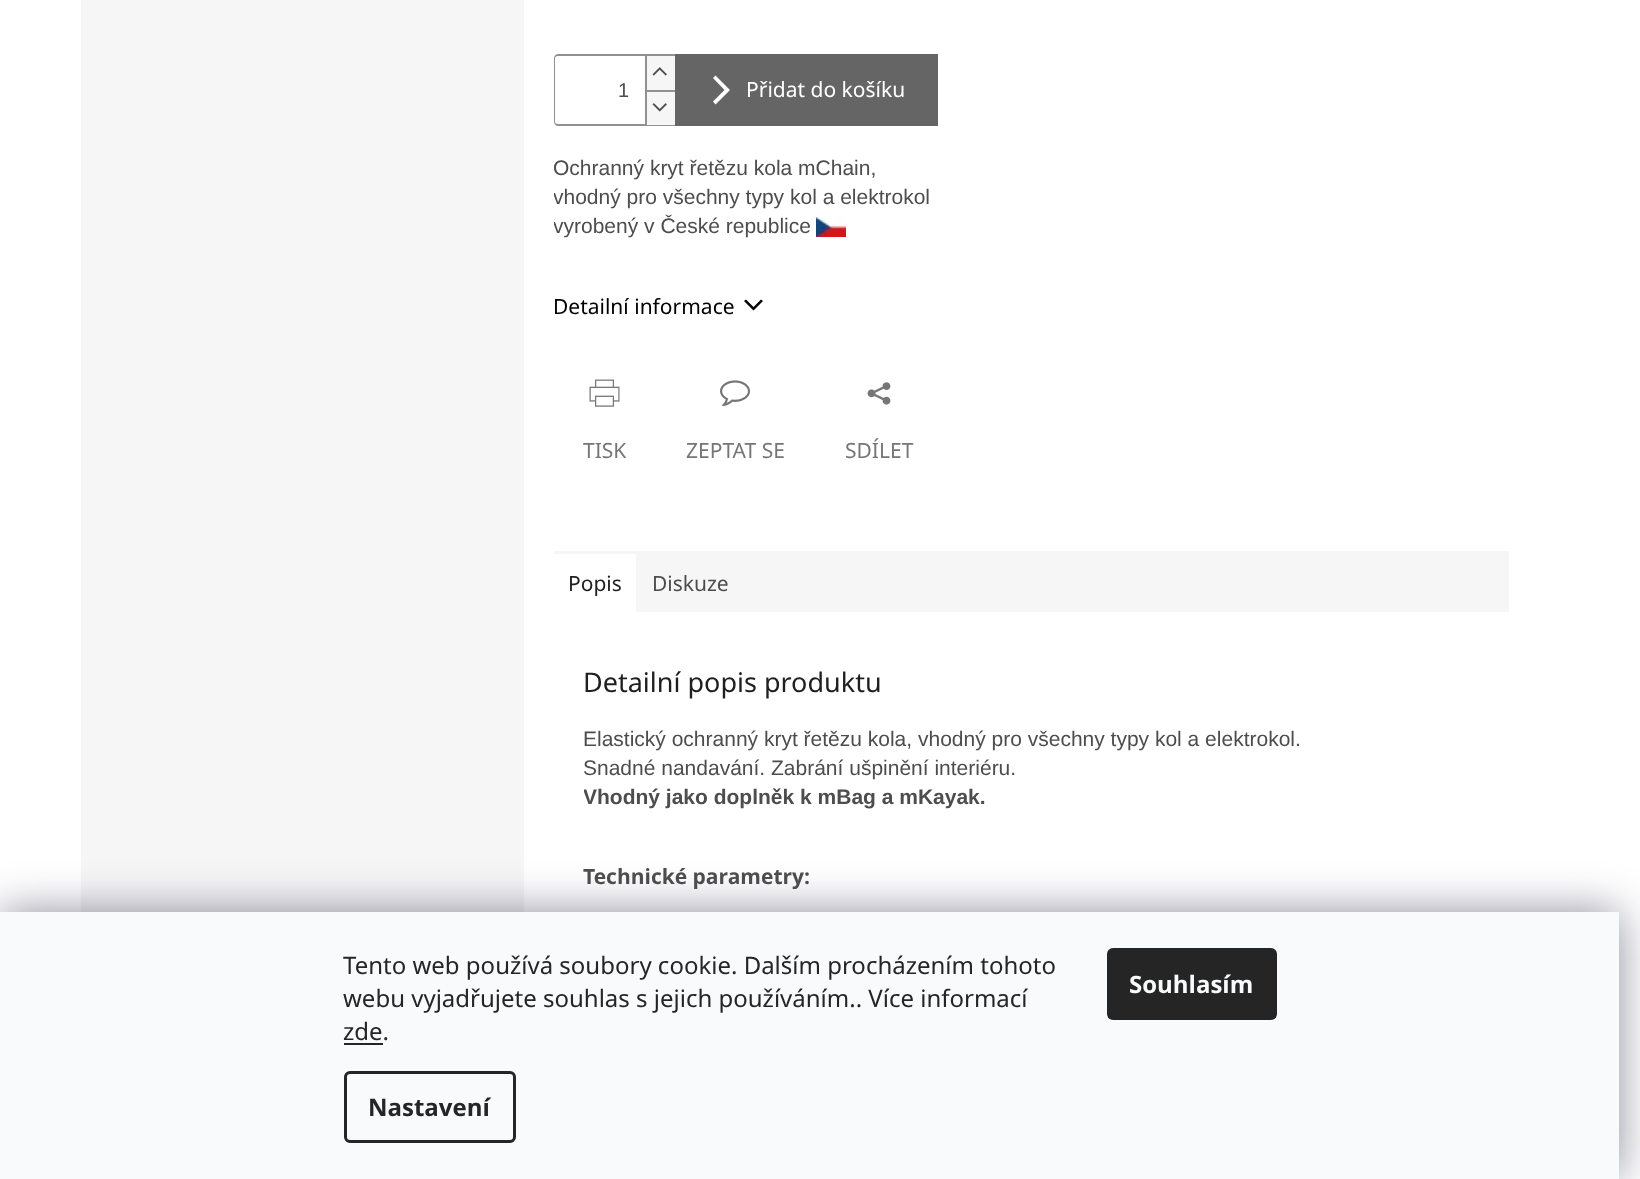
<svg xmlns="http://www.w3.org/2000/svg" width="1640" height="1179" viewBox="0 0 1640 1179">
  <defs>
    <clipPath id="clip1"><path d="M554 155h955v87H554z"/></clipPath>
    <clipPath id="clip2"><path d="M584 725h895v117H584z"/></clipPath>
  </defs>
  <rect width="100%" height="100%" fill="#fff"/>
  <path d="M81 0h443v912H81z" fill="#f6f6f6"/>
  <path d="M558 54H675V126H558C556 126 554 124 554 122V58C554 56 556 54 558 54ZM558 56H675V124H558C556 124 555 123 555 122V58C555 57 556 56 558 56Z" fill="#919191" fill-rule="evenodd"/>
  <path d="M647 56h28v34H647z" fill="#f6f6f6"/>
  <path d="M645 56h2v34H645z" fill="#919191"/>
  <image x="652" y="67" width="15" height="9" href="img/1.png"/>
  <path d="M647 92h28v33H647z" fill="#f6f6f6"/>
  <path d="M645 90h30v2H645z" fill="#919191"/>
  <path d="M645 90h2v35H645z" fill="#919191"/>
  <image x="652" y="103" width="15" height="9" href="img/2.png"/>
  <path d="M675 54h263v72H675z" fill="#656565"/>
  <path d="M715.5 104.5L713 101.5L724.5 90L713 78L715.5 75.5L730 90Z" fill="#fff"/>
  <image x="816" y="217" width="30" height="20" href="img/3.png"/>
  <path d="M744 301L746 299.5L753.5 307L761 299.5L763 301L753.5 310.5Z" fill="#000"/>
  <image x="589" y="379" width="31" height="28" href="img/4.png"/>
  <image x="720" y="380" width="30" height="27" href="img/5.png"/>
  <image x="867" y="382" width="24" height="23" href="img/6.png"/>
  <path d="M636 551h873v61H636z" fill="#f6f6f6"/>
  <path d="M554 551h82v3H554z" fill="#f6f6f6"/>
  <path d="M0 912h1619v267H0z" fill="#1b193980" filter="blur(22.5px)"/>
  <path d="M0 912h1619v267H0z" fill="#f8fafb"/>
  <path d="M344 1043h39v2H344z" fill="#252525"/>
  <rect x="345.5" y="1072.5" width="169" height="69" rx="4.5" fill="none" stroke="#252525" stroke-width="3"/>
  <rect x="1107" y="948" width="170" height="72" rx="6" fill="#252525"/>
  <text x="618" y="97" font-family="Liberation Sans" font-size="20" fill="#4d4d4d">1</text>
  <text x="746" y="97" font-family="Noto Sans" font-size="21" fill="#fff">Přidat do košíku</text>
  <g clip-path="url(#clip1)">
    <g font-family="Liberation Sans" font-size="21" fill="#4d4d4d">
      <text x="553" y="175">Ochranný kryt řetězu kola mChain,</text>
      <text x="553" y="204">vhodný pro všechny typy kol a elektrokol</text>
      <text x="553" y="233">vyrobený v České republice</text>
    </g>
  </g>
  <text x="553" y="314" font-family="Noto Sans" font-size="21" fill="#000">Detailní informace</text>
  <g font-family="Noto Sans" font-size="21" fill="#767676">
    <text x="583" y="458">TISK</text>
    <text x="686" y="458">ZEPTAT SE</text>
    <text x="845" y="458">SDÍLET</text>
  </g>
  <text x="568" y="591" font-family="Noto Sans" font-size="21" fill="#1f1f1f">Popis</text>
  <text x="652" y="591" font-family="Noto Sans" font-size="21" fill="#4d4d4d">Diskuze</text>
  <text x="583" y="692" font-family="Noto Sans" font-size="27" fill="#1f1f1f">Detailní popis produktu</text>
  <g font-family="Liberation Sans" font-size="21" fill="#4d4d4d">
    <text x="583" y="746">Elastický ochranný kryt řetězu kola, vhodný pro všechny typy kol a elektrokol.</text>
    <text x="583" y="775">Snadné nandavání. Zabrání ušpinění interiéru.</text>
  </g>
  <g clip-path="url(#clip2)">
    <text x="583" y="804" font-family="Liberation Sans" font-size="21" font-weight="bold" fill="#4d4d4d">Vhodný jako doplněk k mBag a mKayak.</text>
  </g>
  <text x="583" y="884" font-family="Noto Sans" font-size="21" font-weight="bold" fill="#4d4d4d">Technické parametry:</text>
  <g font-family="Noto Sans" font-size="24" fill="#252525">
    <text x="343" y="974">Tento web používá soubory cookie. Dalším procházením tohoto</text>
    <text x="343" y="1007">webu vyjadřujete souhlas s jejich používáním.. Více informací</text>
    <text x="343" y="1040">zde.</text>
  </g>
  <text x="368" y="1116" font-family="Noto Sans" font-size="24" font-weight="bold" fill="#252525">Nastavení</text>
  <text x="1129" y="993" font-family="Noto Sans" font-size="24" font-weight="bold" fill="#f8fafb">Souhlasím</text>
</svg>
